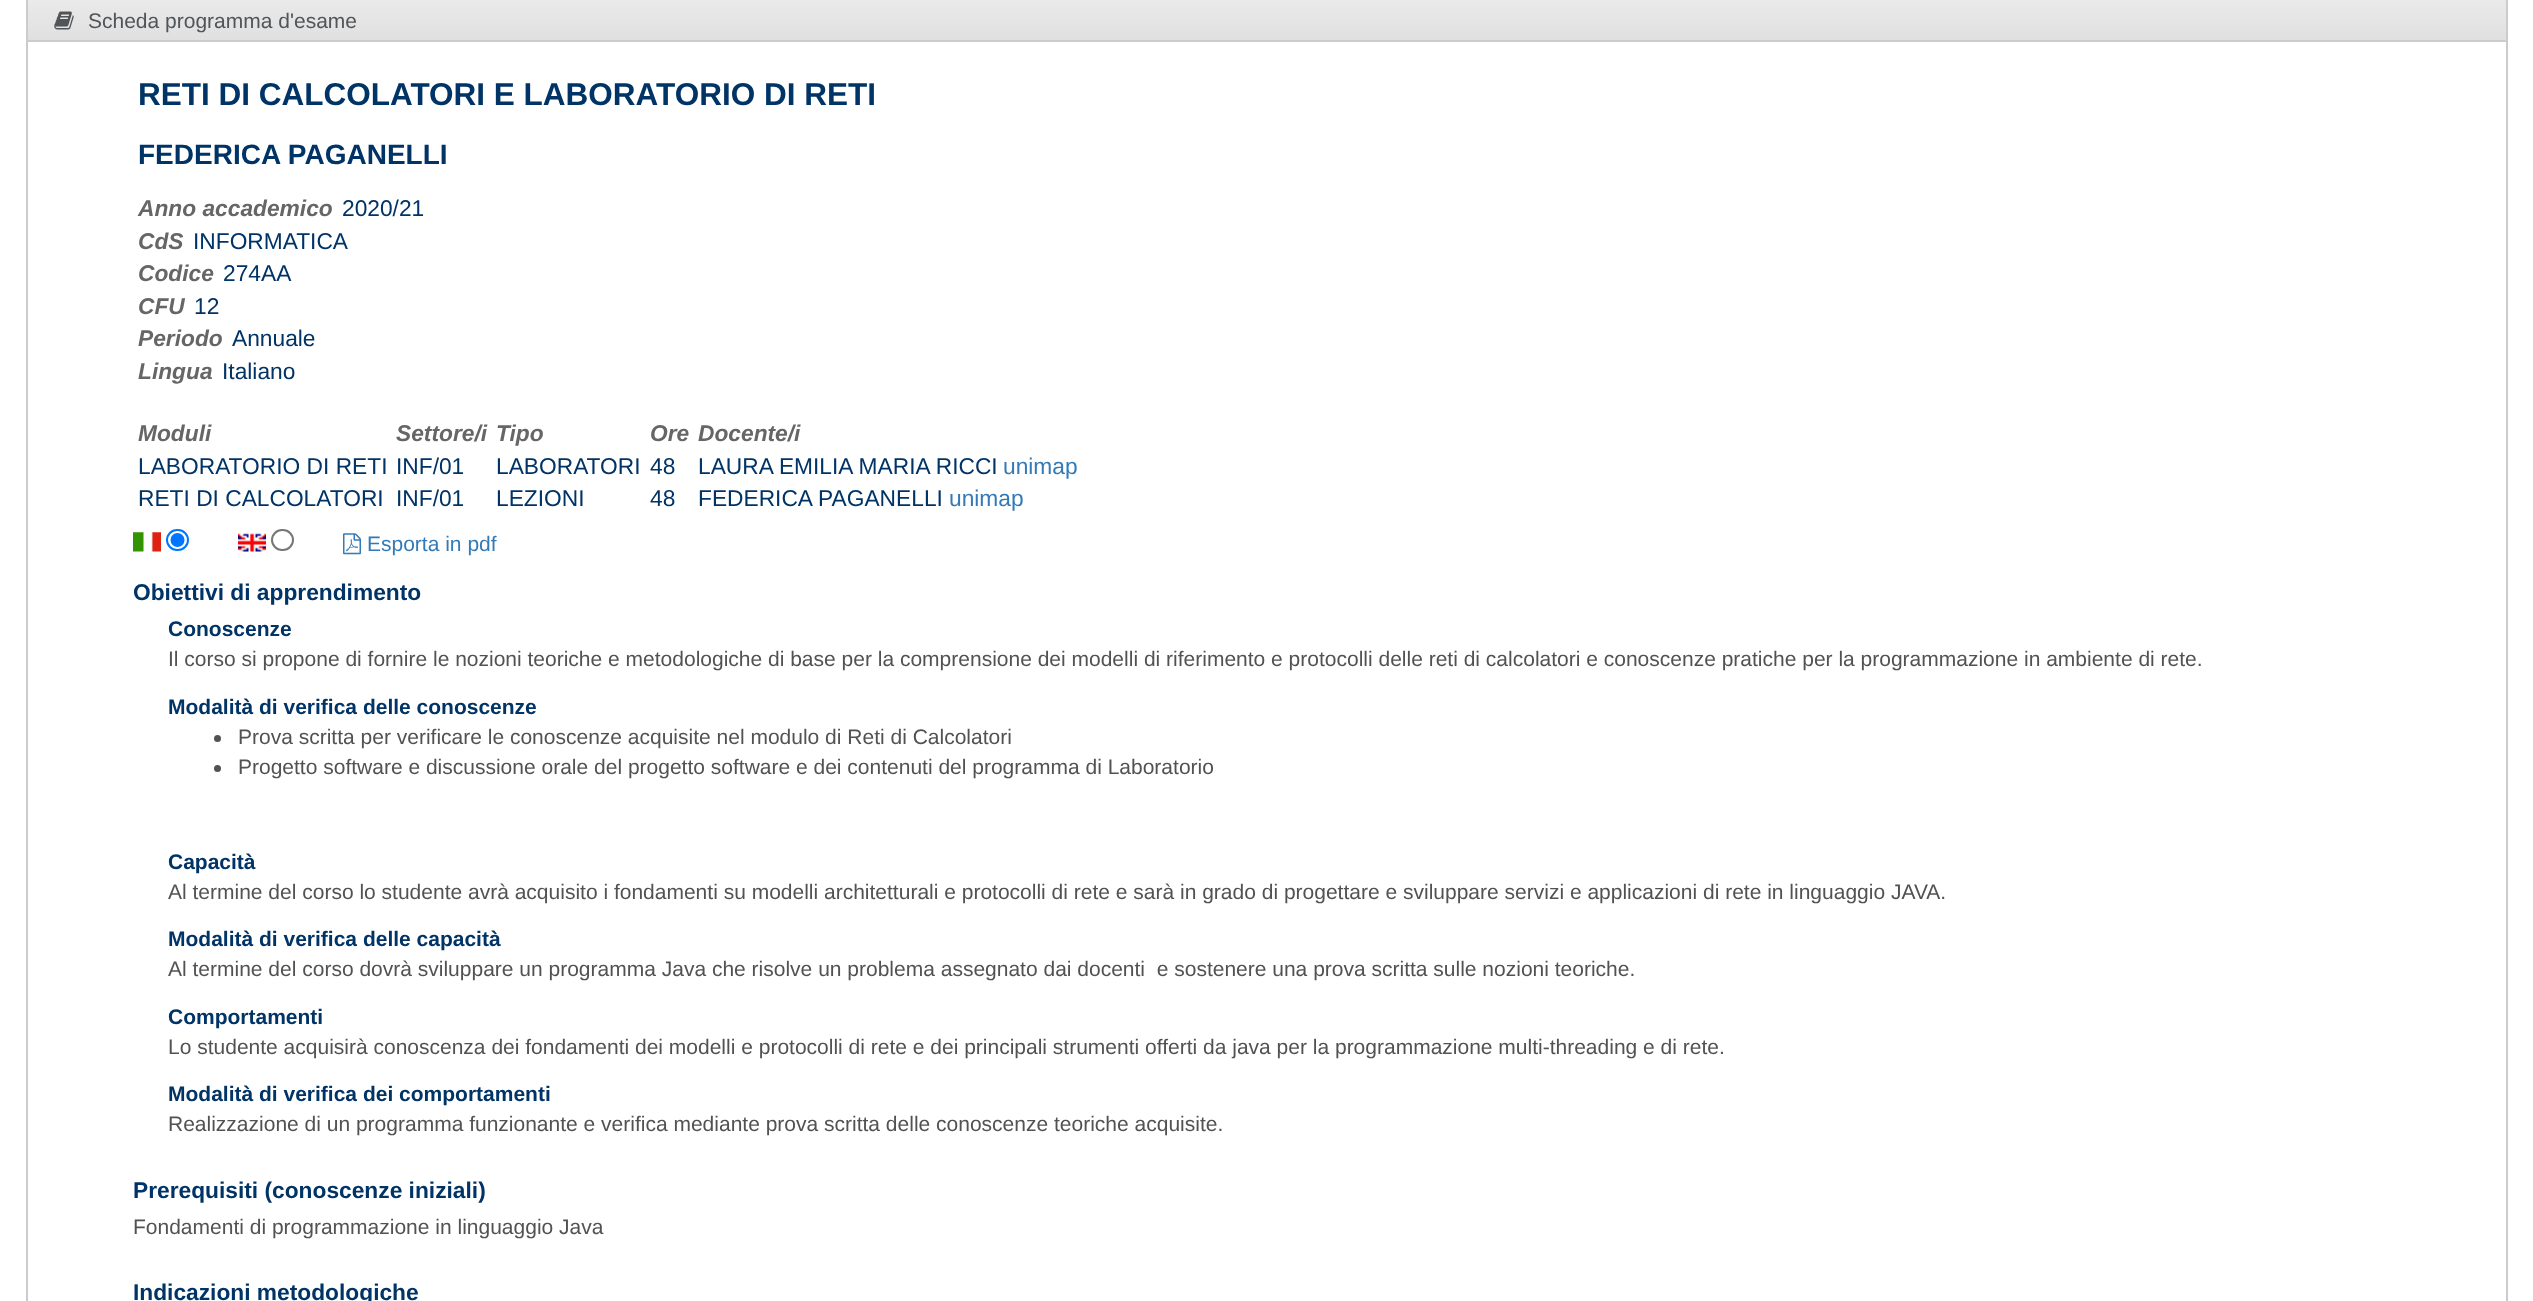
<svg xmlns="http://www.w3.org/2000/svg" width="2533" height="1301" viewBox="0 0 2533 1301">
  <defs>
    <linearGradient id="g1" gradientUnits="userSpaceOnUse" x1="1267" y1="0" x2="1267" y2="40"><stop offset="0" stop-color="#eaeaea"/><stop offset="1" stop-color="#e0e0e0"/></linearGradient>
  </defs>
  <rect width="100%" height="100%" fill="#fff"/>
  <path d="M27 -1h2480v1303H27z" fill="none" stroke="#ccc" stroke-width="2"/>
  <path d="M28 0h2478v40H28z" fill="url(#g1)"/>
  <path d="M28 40h2478v2H28z" fill="#ccc"/>
  <image x="54" y="11" width="20" height="19" href="img/1.png"/>
  <image x="133" y="532" width="28" height="20" href="img/2.png"/>
  <rect x="167" y="530" width="21" height="20" rx="10" fill="none" stroke="#0075ff" stroke-width="2"/>
  <circle cx="177.5" cy="540" r="7" fill="#0075ff"/>
  <image x="238" y="533" width="28" height="19" href="img/3.png"/>
  <rect x="272" y="530" width="21" height="20" rx="10" fill="none" stroke="#767676" stroke-width="2"/>
  <image x="343" y="533" width="18" height="22" href="img/4.png"/>
  <circle cx="217.5" cy="738.5" r="3.5" fill="#525252"/>
  <circle cx="217.5" cy="768.5" r="3.5" fill="#525252"/>
  <text x="88" y="28" font-family="Liberation Sans" font-size="21" fill="#505559">Scheda programma d'esame</text>
  <text x="138" y="105" font-family="Liberation Sans" font-size="31.5" font-weight="bold" fill="#036">RETI DI CALCOLATORI E LABORATORIO DI RETI</text>
  <text x="138" y="164" font-family="Liberation Sans" font-size="28" font-weight="bold" fill="#036">FEDERICA PAGANELLI</text>
  <text x="138" y="216" font-family="Liberation Sans" font-size="22.75" font-weight="bold" font-style="italic" fill="#666">Anno accademico</text>
  <text x="342" y="216" font-family="Liberation Sans" font-size="22.75" fill="#036">2020/21</text>
  <text x="138" y="249" font-family="Liberation Sans" font-size="22.75" font-weight="bold" font-style="italic" fill="#666">CdS</text>
  <text x="193" y="249" font-family="Liberation Sans" font-size="22.75" fill="#036">INFORMATICA</text>
  <text x="138" y="281" font-family="Liberation Sans" font-size="22.75" font-weight="bold" font-style="italic" fill="#666">Codice</text>
  <text x="223" y="281" font-family="Liberation Sans" font-size="22.75" fill="#036">274AA</text>
  <text x="138" y="314" font-family="Liberation Sans" font-size="22.75" font-weight="bold" font-style="italic" fill="#666">CFU</text>
  <text x="194" y="314" font-family="Liberation Sans" font-size="22.75" fill="#036">12</text>
  <text x="138" y="346" font-family="Liberation Sans" font-size="22.75" font-weight="bold" font-style="italic" fill="#666">Periodo</text>
  <text x="232" y="346" font-family="Liberation Sans" font-size="22.75" fill="#036">Annuale</text>
  <text x="138" y="379" font-family="Liberation Sans" font-size="22.75" font-weight="bold" font-style="italic" fill="#666">Lingua</text>
  <text x="222" y="379" font-family="Liberation Sans" font-size="22.75" fill="#036">Italiano</text>
  <g font-family="Liberation Sans" font-size="22.75" font-weight="bold" font-style="italic" fill="#666">
    <text x="138" y="441">Moduli</text>
    <text x="396" y="441">Settore/i</text>
    <text x="496" y="441">Tipo</text>
    <text x="650" y="441">Ore</text>
    <text x="698" y="441">Docente/i</text>
  </g>
  <g font-family="Liberation Sans" font-size="22.75" fill="#036">
    <text x="138" y="474">LABORATORIO DI RETI</text>
    <text x="396" y="474">INF/01</text>
    <text x="496" y="474">LABORATORI</text>
    <text x="650" y="474">48</text>
    <text x="698" y="474">LAURA EMILIA MARIA RICCI</text>
  </g>
  <text x="1003" y="474" font-family="Liberation Sans" font-size="22.75" fill="#337ab7">unimap</text>
  <g font-family="Liberation Sans" font-size="22.75" fill="#036">
    <text x="138" y="506">RETI DI CALCOLATORI</text>
    <text x="396" y="506">INF/01</text>
    <text x="496" y="506">LEZIONI</text>
    <text x="650" y="506">48</text>
    <text x="698" y="506">FEDERICA PAGANELLI</text>
  </g>
  <text x="949" y="506" font-family="Liberation Sans" font-size="22.75" fill="#337ab7">unimap</text>
  <text x="367" y="551" font-family="Liberation Sans" font-size="21" fill="#337ab7">Esporta in pdf</text>
  <text x="133" y="600" font-family="Liberation Sans" font-size="22.75" font-weight="bold" fill="#036">Obiettivi di apprendimento</text>
  <text x="168" y="636" font-family="Liberation Sans" font-size="21" font-weight="bold" fill="#036">Conoscenze</text>
  <text x="168" y="666" font-family="Liberation Sans" font-size="21" fill="#525252">Il corso si propone di fornire le nozioni teoriche e metodologiche di base per la comprensione dei modelli di riferimento e protocolli delle reti di calcolatori e conoscenze pratiche per la programmazione in ambiente di rete.</text>
  <text x="168" y="714" font-family="Liberation Sans" font-size="21" font-weight="bold" fill="#036">Modalità di verifica delle conoscenze</text>
  <g font-family="Liberation Sans" font-size="21" fill="#525252">
    <text x="238" y="744">Prova scritta per verificare le conoscenze acquisite nel modulo di Reti di Calcolatori</text>
    <text x="238" y="774">Progetto software e discussione orale del progetto software e dei contenuti del programma di Laboratorio</text>
  </g>
  <text x="168" y="869" font-family="Liberation Sans" font-size="21" font-weight="bold" fill="#036">Capacità</text>
  <text x="168" y="899" font-family="Liberation Sans" font-size="21" fill="#525252">Al termine del corso lo studente avrà acquisito i fondamenti su modelli architetturali e protocolli di rete e sarà in grado di progettare e sviluppare servizi e applicazioni di rete in linguaggio JAVA.</text>
  <text x="168" y="946" font-family="Liberation Sans" font-size="21" font-weight="bold" fill="#036">Modalità di verifica delle capacità</text>
  <text x="168" y="976" font-family="Liberation Sans" font-size="21" fill="#525252" xml:space="preserve">Al termine del corso dovrà sviluppare un programma Java che risolve un problema assegnato dai docenti  e sostenere una prova scritta sulle nozioni teoriche.</text>
  <text x="168" y="1024" font-family="Liberation Sans" font-size="21" font-weight="bold" fill="#036">Comportamenti</text>
  <text x="168" y="1054" font-family="Liberation Sans" font-size="21" fill="#525252">Lo studente acquisirà conoscenza dei fondamenti dei modelli e protocolli di rete e dei principali strumenti offerti da java per la programmazione multi-threading e di rete.</text>
  <text x="168" y="1101" font-family="Liberation Sans" font-size="21" font-weight="bold" fill="#036">Modalità di verifica dei comportamenti</text>
  <text x="168" y="1131" font-family="Liberation Sans" font-size="21" fill="#525252">Realizzazione di un programma funzionante e verifica mediante prova scritta delle conoscenze teoriche acquisite.</text>
  <text x="133" y="1198" font-family="Liberation Sans" font-size="22.75" font-weight="bold" fill="#036">Prerequisiti (conoscenze iniziali)</text>
  <text x="133" y="1234" font-family="Liberation Sans" font-size="21" fill="#525252">Fondamenti di programmazione in linguaggio Java</text>
  <text x="133" y="1300" font-family="Liberation Sans" font-size="22.75" font-weight="bold" fill="#036">Indicazioni metodologiche</text>
</svg>
